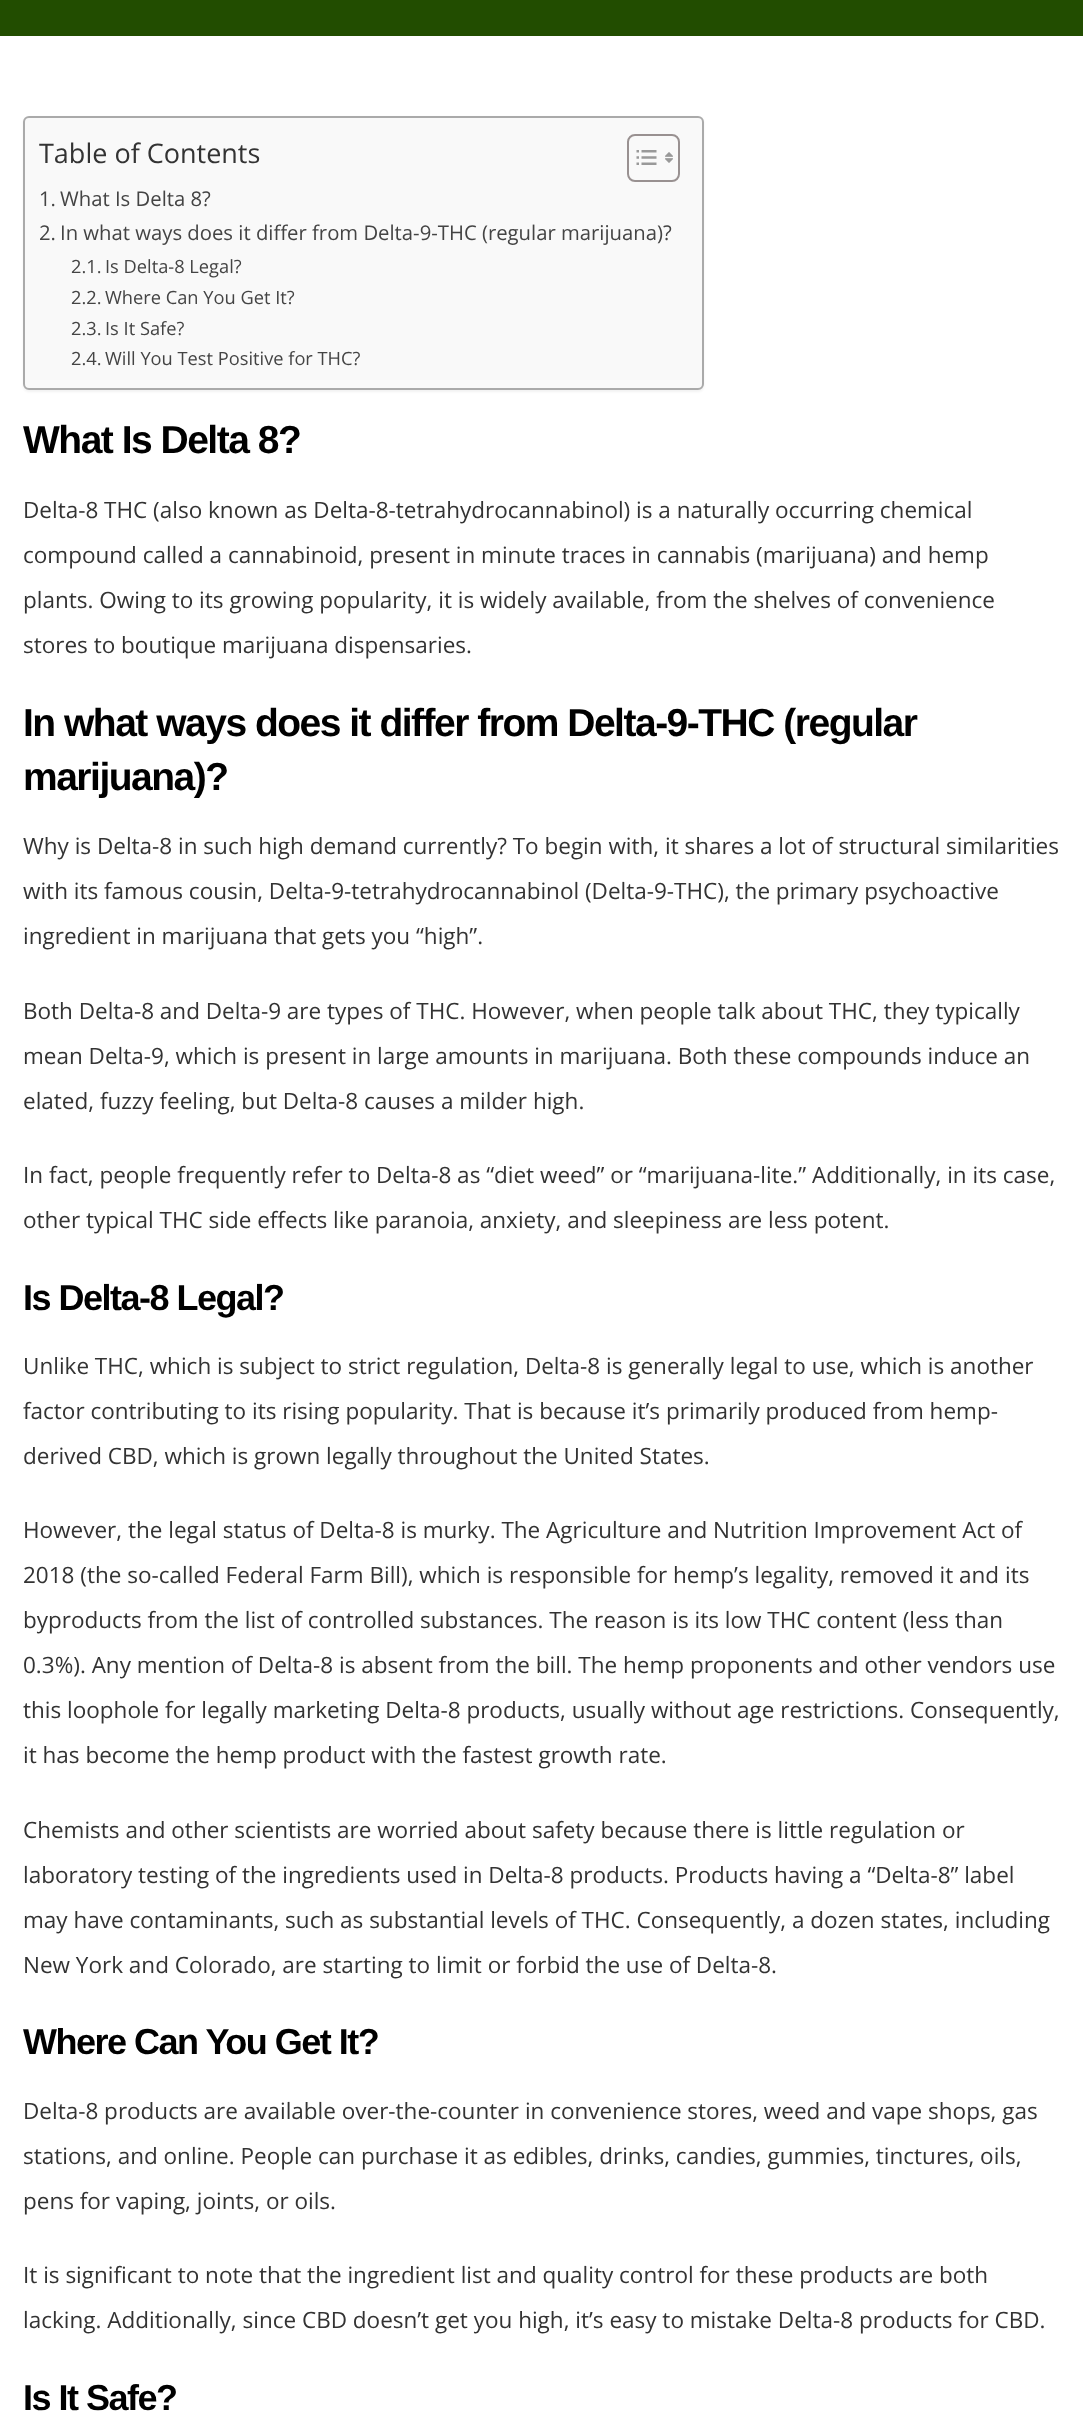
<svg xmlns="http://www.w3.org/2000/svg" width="1083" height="2424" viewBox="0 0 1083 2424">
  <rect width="100%" height="100%" fill="#fff"/>
  <path d="M0 0h1083v36H0z" fill="#224d00"/>
  <rect x="23" y="117" width="681" height="275" rx="6" fill="#0000000d" filter="blur(1px)"/>
  <rect x="24" y="117" width="679" height="272" rx="5" fill="#f9f9f9" stroke="#aaa" stroke-width="2"/>
  <rect x="628" y="135" width="51" height="46" rx="7" fill="none" stroke="#999191" stroke-width="2"/>
  <image x="636" y="150" width="21" height="15" href="img/1.png"/>
  <image x="665" y="152" width="8" height="11" href="img/2.png"/>
  <text x="39" y="163" font-family="Open Sans" font-size="27" fill="#333">Table of Contents</text>
  <g font-family="Open Sans" font-size="20.3" fill="#444">
    <text x="39" y="206">1.</text>
    <text x="60" y="206">What Is Delta 8?</text>
    <text x="39" y="240">2.</text>
    <text x="60" y="240">In what ways does it differ from Delta-9-THC (regular marijuana)?</text>
  </g>
  <g font-family="Open Sans" font-size="18.25" fill="#444">
    <text x="71" y="273">2.1.</text>
    <text x="105" y="273">Is Delta-8 Legal?</text>
    <text x="71" y="304">2.2.</text>
    <text x="105" y="304">Where Can You Get It?</text>
    <text x="71" y="335">2.3.</text>
    <text x="105" y="335">Is It Safe?</text>
    <text x="71" y="365">2.4.</text>
    <text x="105" y="365">Will You Test Positive for THC?</text>
  </g>
  <text x="23" y="453" font-family="Liberation Sans" font-size="39" font-weight="bold" letter-spacing="-1.5" fill="#000">What Is Delta 8?</text>
  <g font-family="Open Sans" font-size="22.5" fill="#333">
    <text x="23" y="518">Delta-8 THC (also known as Delta-8-tetrahydrocannabinol) is a naturally occurring chemical</text>
    <text x="23" y="563">compound called a cannabinoid, present in minute traces in cannabis (marijuana) and hemp</text>
    <text x="23" y="608">plants. Owing to its growing popularity, it is widely available, from the shelves of convenience</text>
    <text x="23" y="653">stores to boutique marijuana dispensaries.</text>
  </g>
  <g font-family="Liberation Sans" font-size="39" font-weight="bold" letter-spacing="-1.5" fill="#000">
    <text x="23" y="736">In what ways does it differ from Delta-9-THC (regular</text>
    <text x="23" y="790">marijuana)?</text>
  </g>
  <g font-family="Open Sans" font-size="22.5" fill="#333">
    <text x="23" y="854">Why is Delta-8 in such high demand currently? To begin with, it shares a lot of structural similarities</text>
    <text x="23" y="899">with its famous cousin, Delta-9-tetrahydrocannabinol (Delta-9-THC), the primary psychoactive</text>
    <text x="23" y="944">ingredient in marijuana that gets you “high”.</text>
    <text x="23" y="1019">Both Delta-8 and Delta-9 are types of THC. However, when people talk about THC, they typically</text>
    <text x="23" y="1064">mean Delta-9, which is present in large amounts in marijuana. Both these compounds induce an</text>
    <text x="23" y="1109">elated, fuzzy feeling, but Delta-8 causes a milder high.</text>
    <text x="23" y="1183">In fact, people frequently refer to Delta-8 as “diet weed” or “marijuana-lite.” Additionally, in its case,</text>
    <text x="23" y="1228">other typical THC side effects like paranoia, anxiety, and sleepiness are less potent.</text>
  </g>
  <text x="23" y="1310" font-family="Liberation Sans" font-size="36" font-weight="bold" letter-spacing="-1.5" fill="#000">Is Delta-8 Legal?</text>
  <g font-family="Open Sans" font-size="22.5" fill="#333">
    <text x="23" y="1374">Unlike THC, which is subject to strict regulation, Delta-8 is generally legal to use, which is another</text>
    <text x="23" y="1419">factor contributing to its rising popularity. That is because it’s primarily produced from hemp-</text>
    <text x="23" y="1464">derived CBD, which is grown legally throughout the United States.</text>
    <text x="23" y="1538">However, the legal status of Delta-8 is murky. The Agriculture and Nutrition Improvement Act of</text>
    <text x="23" y="1583">2018 (the so-called Federal Farm Bill), which is responsible for hemp’s legality, removed it and its</text>
    <text x="23" y="1628">byproducts from the list of controlled substances. The reason is its low THC content (less than</text>
    <text x="23" y="1673">0.3%). Any mention of Delta-8 is absent from the bill. The hemp proponents and other vendors use</text>
    <text x="23" y="1718">this loophole for legally marketing Delta-8 products, usually without age restrictions. Consequently,</text>
    <text x="23" y="1763">it has become the hemp product with the fastest growth rate.</text>
    <text x="23" y="1838">Chemists and other scientists are worried about safety because there is little regulation or</text>
    <text x="23" y="1883">laboratory testing of the ingredients used in Delta-8 products. Products having a “Delta-8” label</text>
    <text x="23" y="1928">may have contaminants, such as substantial levels of THC. Consequently, a dozen states, including</text>
    <text x="23" y="1973">New York and Colorado, are starting to limit or forbid the use of Delta-8.</text>
  </g>
  <text x="23" y="2054" font-family="Liberation Sans" font-size="36" font-weight="bold" letter-spacing="-1.5" fill="#000">Where Can You Get It?</text>
  <g font-family="Open Sans" font-size="22.5" fill="#333">
    <text x="23" y="2119">Delta-8 products are available over-the-counter in convenience stores, weed and vape shops, gas</text>
    <text x="23" y="2164">stations, and online. People can purchase it as edibles, drinks, candies, gummies, tinctures, oils,</text>
    <text x="23" y="2209">pens for vaping, joints, or oils.</text>
    <text x="23" y="2283">It is significant to note that the ingredient list and quality control for these products are both</text>
    <text x="23" y="2328">lacking. Additionally, since CBD doesn’t get you high, it’s easy to mistake Delta-8 products for CBD.</text>
  </g>
  <text x="23" y="2410" font-family="Liberation Sans" font-size="36" font-weight="bold" letter-spacing="-1.5" fill="#000">Is It Safe?</text>
</svg>
